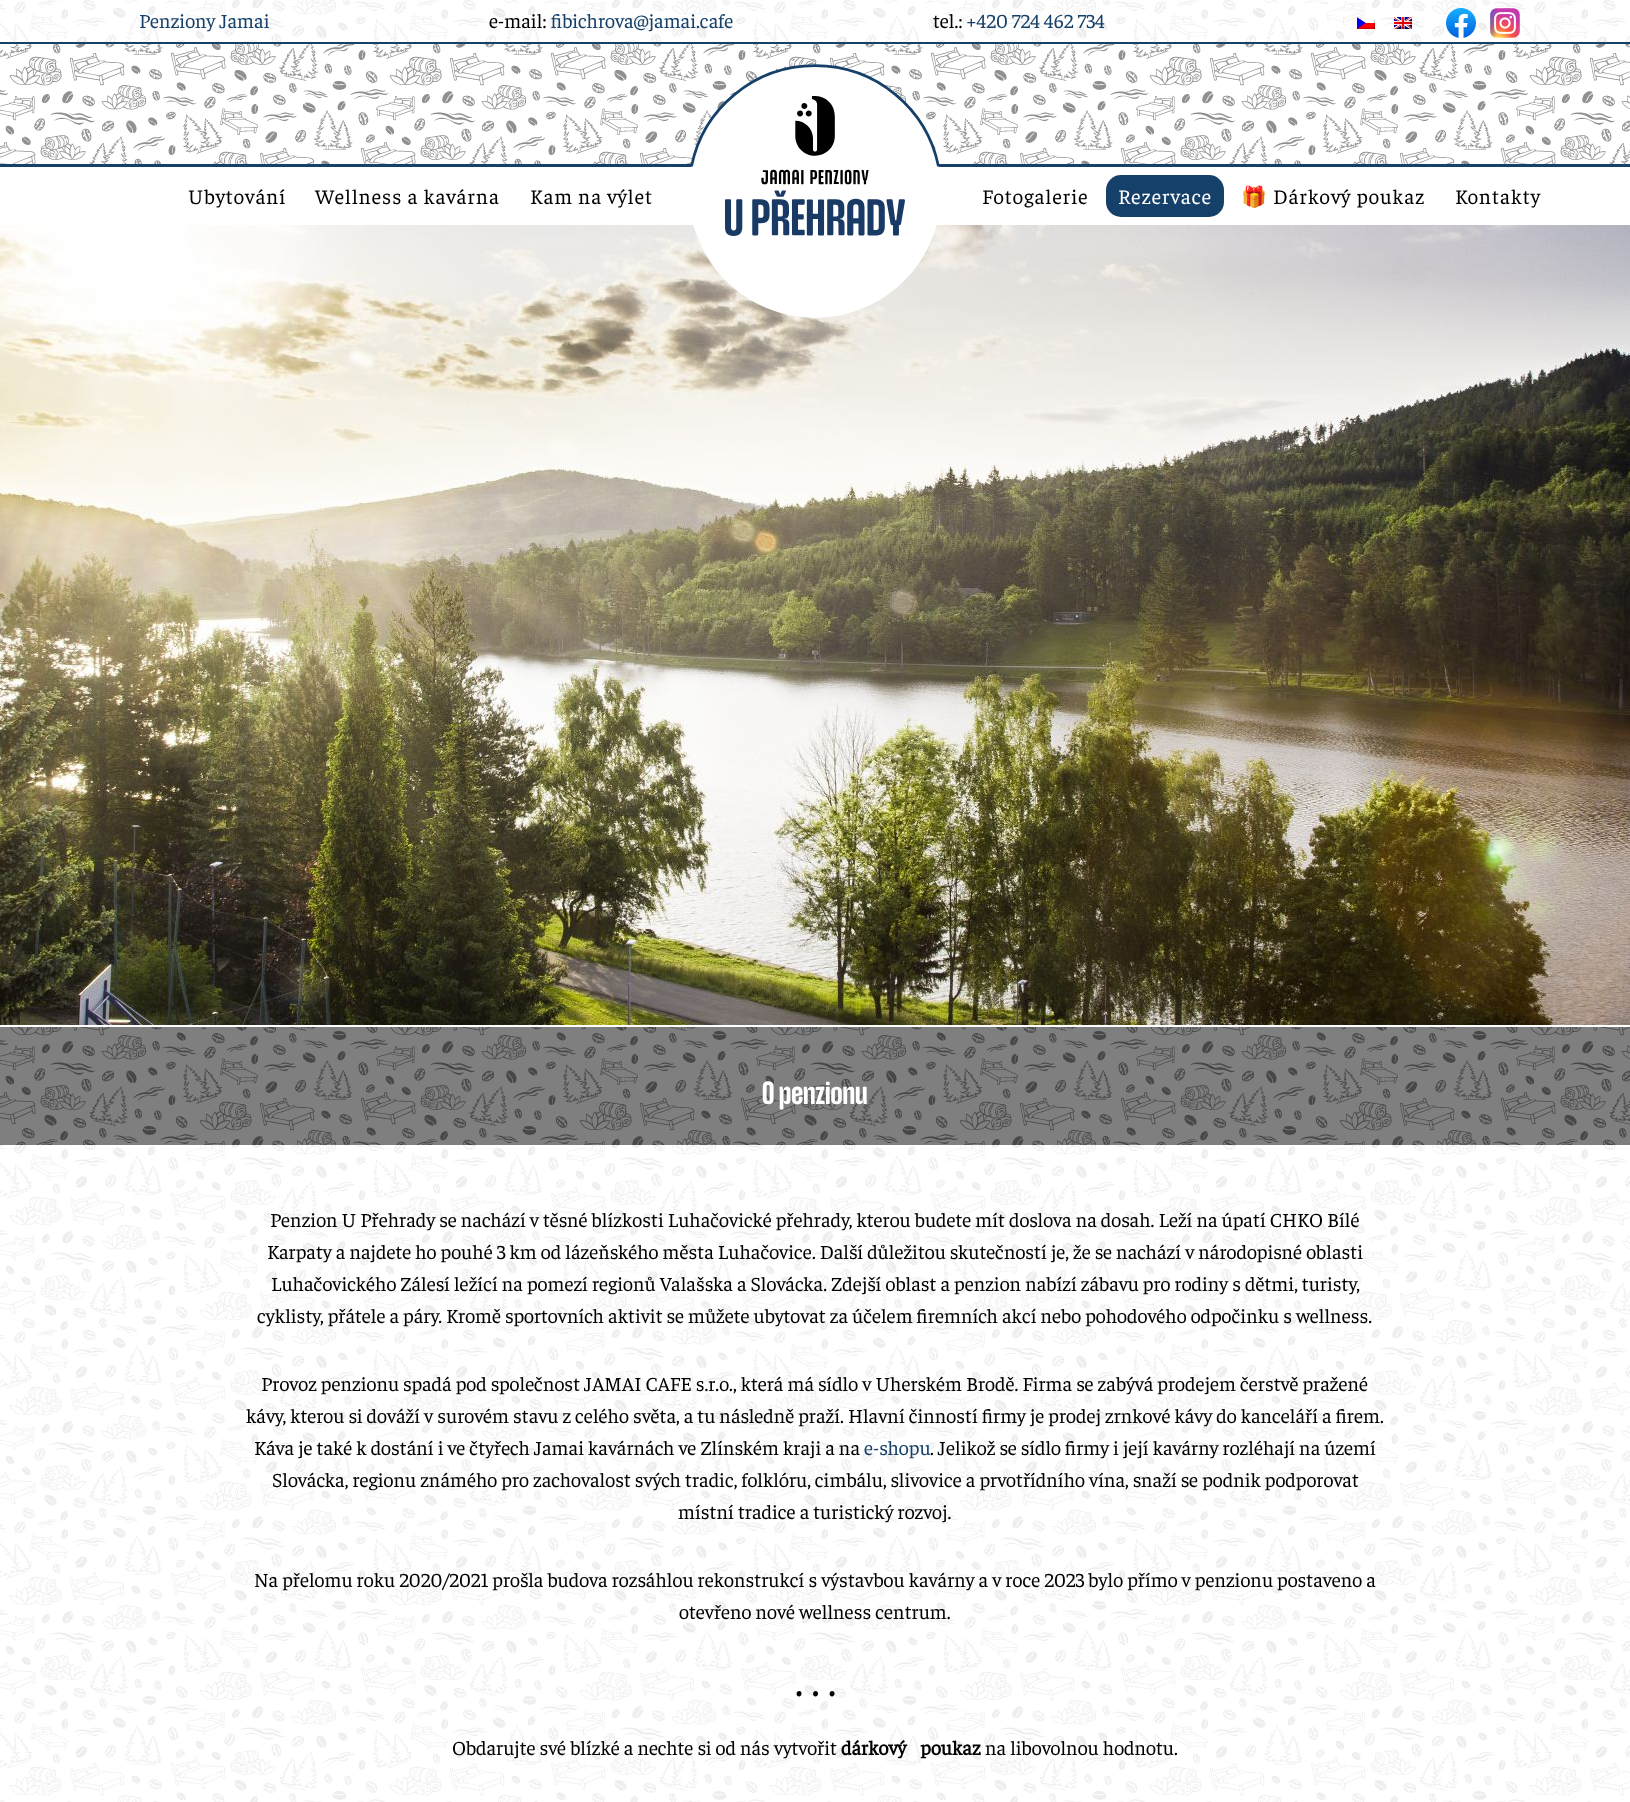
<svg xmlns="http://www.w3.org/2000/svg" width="1630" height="1802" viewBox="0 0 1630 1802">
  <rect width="100%" height="100%" fill="#fff"/>
  <image x="0" y="0" width="1630" height="164" href="img/1.png"/>
  <path d="M0 164h1630v3H0z" fill="#154069"/>
  <path d="M0 0h1630v42H0z" fill="#ffffffd9"/>
  <path d="M0 42h1630v2H0z" fill="#154069"/>
  <image x="1357" y="17" width="18" height="12" href="img/2.png"/>
  <image x="1394" y="17" width="18" height="12" href="img/3.png"/>
  <image x="1446" y="8" width="30" height="30" href="img/4.png"/>
  <image x="1490" y="8" width="30" height="30" href="img/5.png"/>
  <image x="0" y="225" width="1630" height="800" href="img/7.png"/>
  <image x="690" y="64" width="250" height="254" href="img/6.png"/>
  <rect x="1106" y="175" width="118" height="42" rx="15" fill="#154069"/>
  <image x="0" y="1027" width="1630" height="775" href="img/8.png"/>
  <path d="M0 1027h1630v118H0z" fill="#00000080"/>
  <path d="M0 1145h1630v657H0z" fill="#ffffffd9"/>
  <text x="139" y="28" font-family="Faustina" font-size="20" fill="#154069">Penziony Jamai</text>
  <text x="489" y="28" font-family="Faustina" font-size="20" fill="#000">e-mail:</text>
  <text x="551" y="28" font-family="Faustina" font-size="20" fill="#154069">fibichrova@jamai.cafe</text>
  <text x="933" y="28" font-family="Faustina" font-size="20" fill="#000">tel.:</text>
  <text x="966" y="28" font-family="Faustina" font-size="20" fill="#154069">+420 724 462 734</text>
  <g font-family="Faustina" font-size="20.75" letter-spacing="1" fill="#000">
    <text x="188" y="204">Ubytování</text>
    <text x="315" y="204">Wellness a kavárna</text>
    <text x="530" y="204">Kam na výlet</text>
    <text x="982" y="204">Fotogalerie</text>
  </g>
  <text x="1118" y="204" font-family="Faustina" font-size="20.75" letter-spacing="1" fill="#fff">Rezervace</text>
  <text x="1241" y="204" font-family="Noto Color Emoji" font-size="20.75" letter-spacing="1" fill="#000">🎁</text>
  <g font-family="Faustina" font-size="20.75" letter-spacing="1" fill="#000">
    <text x="1273" y="204">Dárkový poukaz</text>
    <text x="1455" y="204">Kontakty</text>
  </g>
  <text x="762" y="1104" font-family="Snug" font-size="32" font-weight="600" fill="#fff">O penzionu</text>
  <g font-family="Faustina" font-size="20" fill="#000">
    <text x="270" y="1227">Penzion U Přehrady se nachází v těsné blízkosti Luhačovické přehrady, kterou budete mít doslova na dosah. Leží na úpatí CHKO Bílé</text>
    <text x="267" y="1259">Karpaty a najdete ho pouhé 3 km od lázeňského města Luhačovice. Další důležitou skutečností je, že se nachází v národopisné oblasti</text>
    <text x="271" y="1291">Luhačovického Zálesí ležící na pomezí regionů Valašska a Slovácka. Zdejší oblast a penzion nabízí zábavu pro rodiny s dětmi, turisty,</text>
    <text x="257" y="1323">cyklisty, přátele a páry. Kromě sportovních aktivit se můžete ubytovat za účelem firemních akcí nebo pohodového odpočinku s wellness.</text>
    <text x="261" y="1391">Provoz penzionu spadá pod společnost JAMAI CAFE s.r.o., která má sídlo v Uherském Brodě. Firma se zabývá prodejem čerstvě pražené</text>
    <text x="246" y="1423">kávy, kterou si dováží v surovém stavu z celého světa, a tu následně praží. Hlavní činností firmy je prodej zrnkové kávy do kanceláří a firem.</text>
    <text x="254" y="1455">Káva je také k dostání i ve čtyřech Jamai kavárnách ve Zlínském kraji a na</text>
  </g>
  <text x="864" y="1455" font-family="Faustina" font-size="20" fill="#154069">e-shopu</text>
  <g font-family="Faustina" font-size="20" fill="#000">
    <text x="930" y="1455">. Jelikož se sídlo firmy i její kavárny rozléhají na území</text>
    <text x="272" y="1487">Slovácka, regionu známého pro zachovalost svých tradic, folklóru, cimbálu, slivovice a prvotřídního vína, snaží se podnik podporovat</text>
    <text x="678" y="1519">místní tradice a turistický rozvoj.</text>
    <text x="254" y="1587">Na přelomu roku 2020/2021 prošla budova rozsáhlou rekonstrukcí s výstavbou kavárny a v roce 2023 bylo přímo v penzionu postaveno a</text>
    <text x="679" y="1619">otevřeno nové wellness centrum.</text>
  </g>
  <text x="795" y="1696" font-family="Faustina" font-size="42" fill="#000">. . .</text>
  <text x="452" y="1755" font-family="Faustina" font-size="20" fill="#000">Obdarujte své blízké a nechte si od nás vytvořit</text>
  <text x="841" y="1755" word-spacing="10" font-family="Faustina" font-size="20" font-weight="bold" fill="#000">dárkový poukaz</text>
  <text x="985" y="1755" font-family="Faustina" font-size="20" fill="#000">na libovolnou hodnotu.</text>
</svg>
